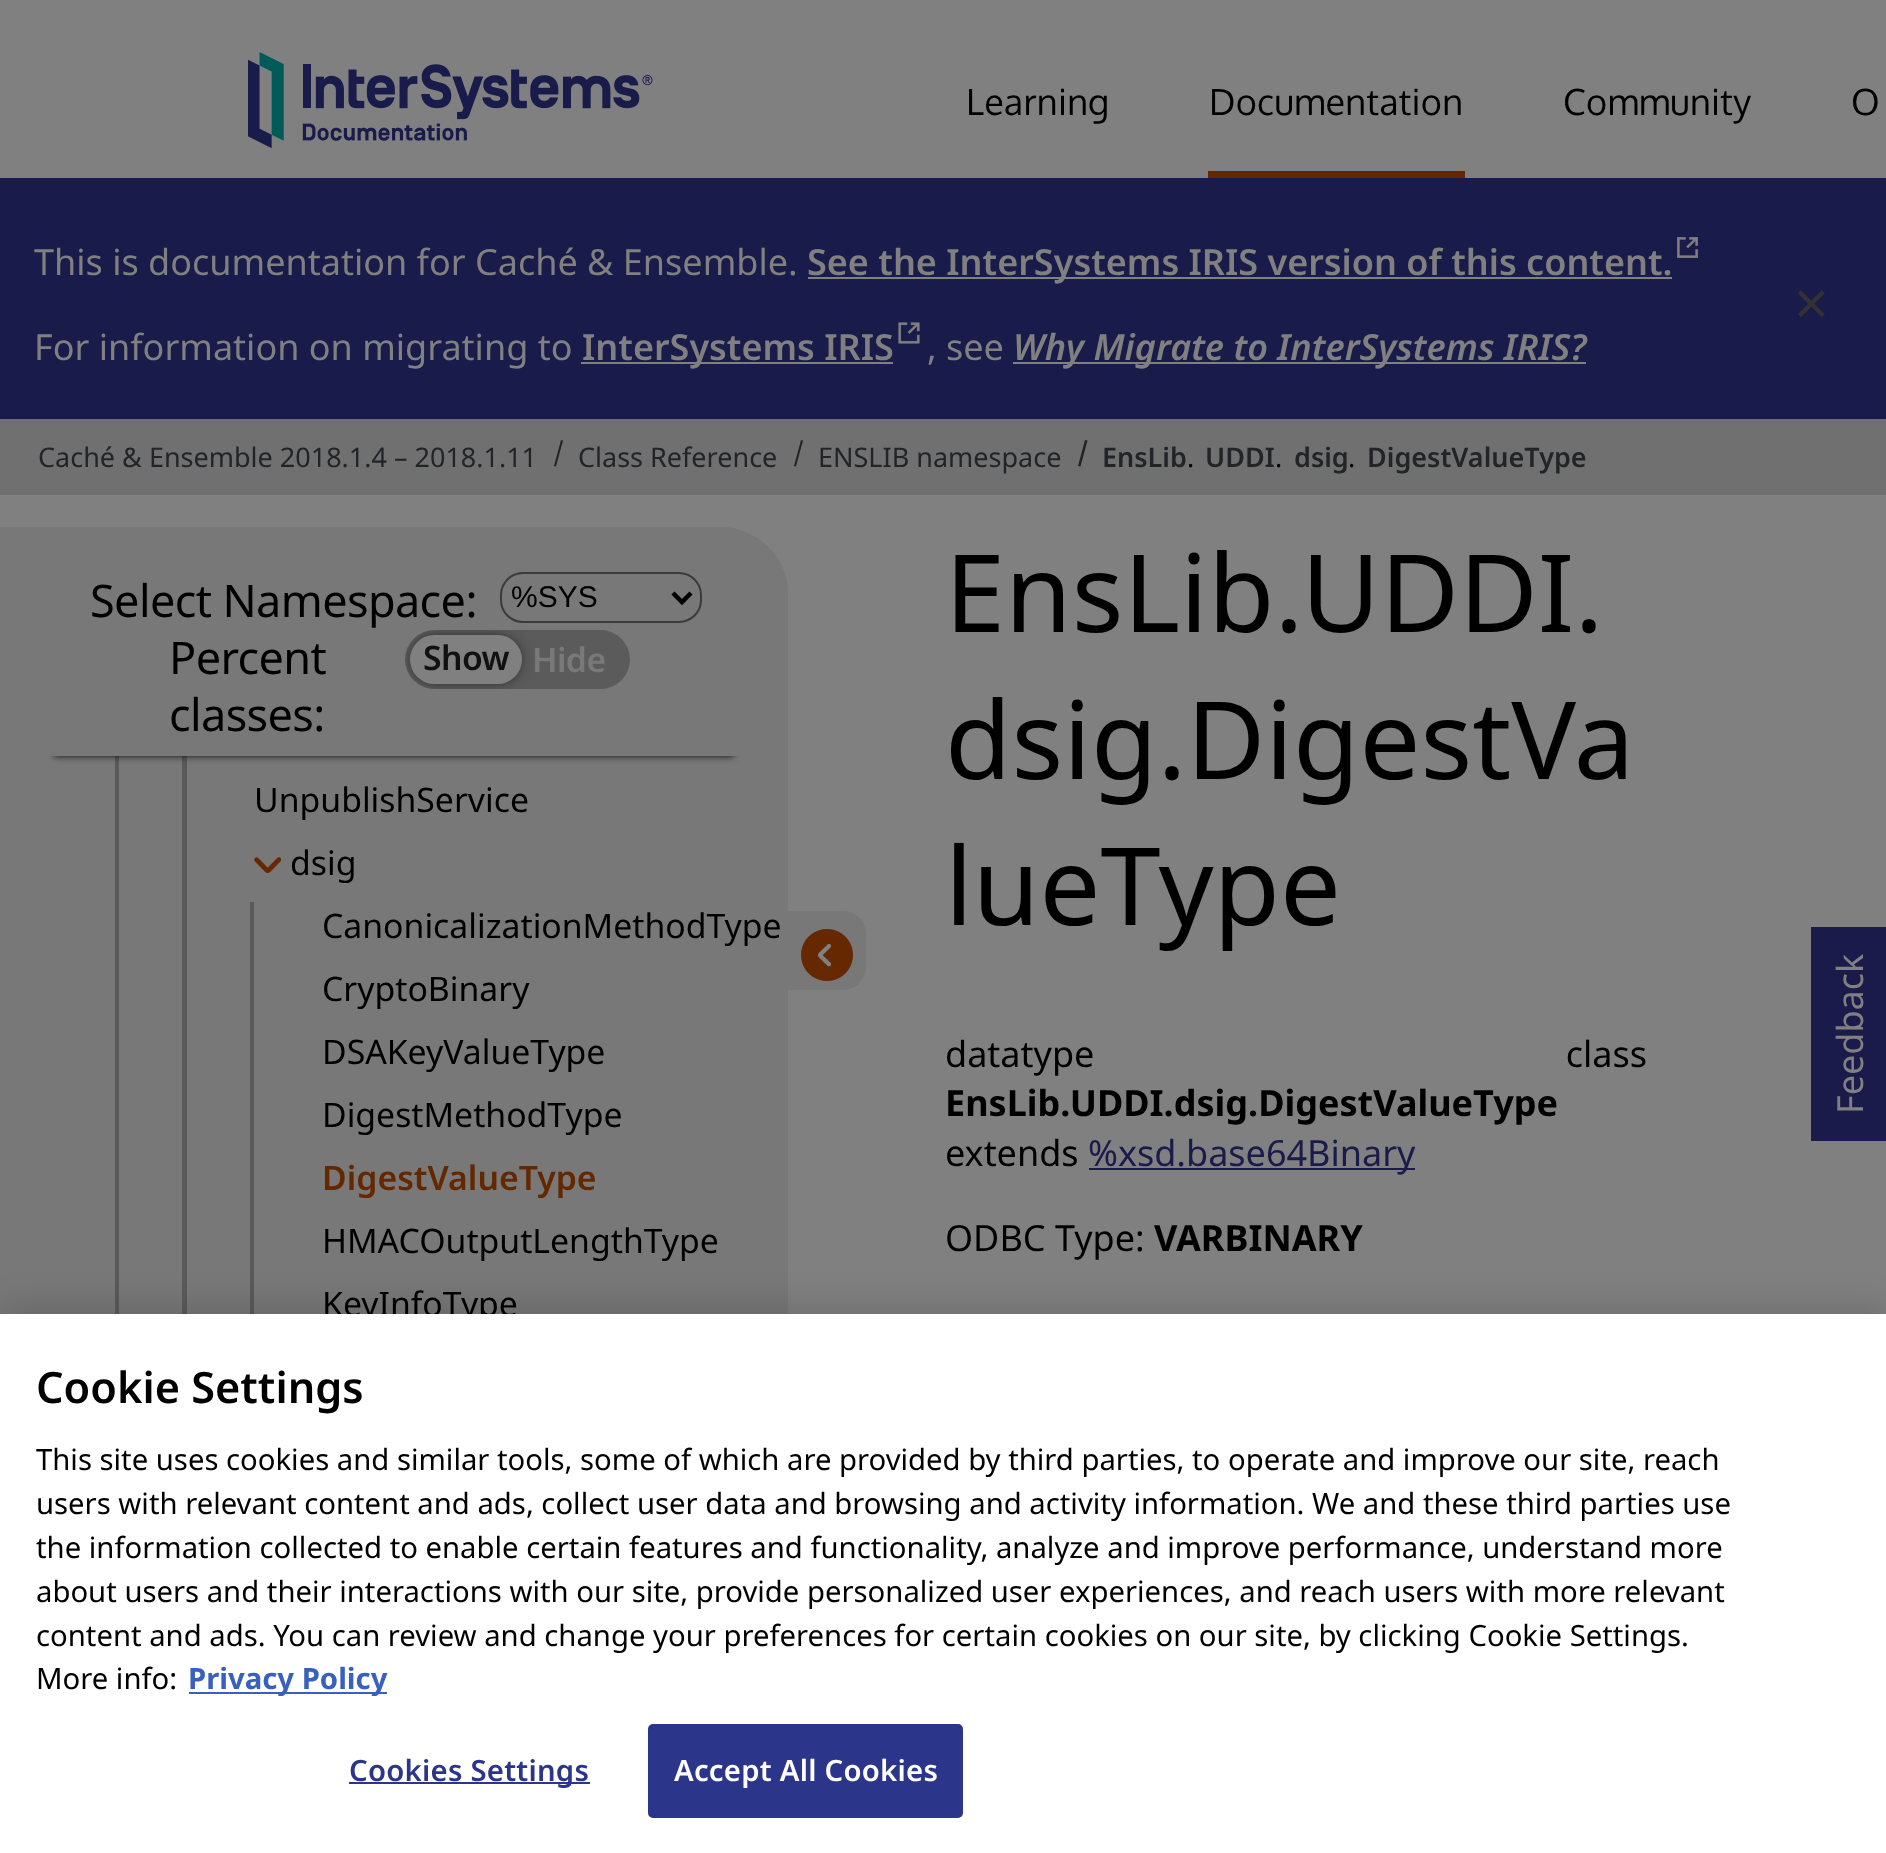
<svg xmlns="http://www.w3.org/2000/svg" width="1886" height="1853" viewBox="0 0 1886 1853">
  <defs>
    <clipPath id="clip1"><rect x="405" y="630" width="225" height="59" rx="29.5"/></clipPath>
  </defs>
  <rect width="100%" height="100%" fill="#808080"/>
  <image x="248" y="52" width="405" height="97" href="img/1.png"/>
  <path d="M1208 171h257v7H1208z" fill="#642800"/>
  <path d="M0 178h1886v241H0z" fill="#191b4a"/>
  <path d="M808 277h864v2H808z" fill="#808080"/>
  <image x="1677" y="237" width="21" height="21" href="img/2.png"/>
  <path d="M581 362h312v2H581z" fill="#808080"/>
  <image x="898" y="322" width="22" height="22" href="img/3.png"/>
  <path d="M1013 362h573v2H1013z" fill="#808080"/>
  <image x="1798" y="290" width="27" height="27" href="img/4.png"/>
  <path d="M0 419h1886v76H0z" fill="#707070"/>
  <path d="M561 440L563 440.5L556 466.5L554 466Z" fill="#222426"/>
  <path d="M801 440L803 440.5L796 466.5L794 466Z" fill="#222426"/>
  <path d="M1085 440L1087.5 440.5L1080.5 466.5L1078 466Z" fill="#222426"/>
  <path d="M0 527H720C757.5 527 788 557.5 788 595V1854H0Z" fill="#787879"/>
  <path d="M115 756h4v558H115z" fill="#5a5a5a"/>
  <path d="M182 756h5v558H182z" fill="#5a5a5a"/>
  <path d="M54 635h680v121H54z" fill="#0b0b0b" filter="blur(3.5px)"/>
  <path d="M0 527H720C757.5 527 788 557.5 788 595V756H0Z" fill="#787879"/>
  <rect x="501" y="573" width="200" height="49" rx="22" fill="none" stroke="#3b3b3b" stroke-width="2"/>
  <path d="M673 593L682 602L691 593" fill="none" stroke="#000" stroke-width="4.5"/>
  <rect x="405" y="630" width="225" height="59" rx="29.5" fill="#5b5b5b"/>
  <g clip-path="url(#clip1)">
    <rect x="414" y="639" width="104" height="41" rx="20.5" fill="#090909" filter="blur(7px)"/>
  </g>
  <rect x="410" y="635" width="112" height="49" rx="24.5" fill="#808080"/>
  <image x="254" y="857" width="27" height="16" href="img/5.png"/>
  <path d="M250 902h4v412H250z" fill="#5a5a5a"/>
  <path d="M788 911H843C855.5 911 866 921.5 866 934V967C866 979.5 855.5 990 843 990H788Z" fill="#787878"/>
  <image x="801" y="929" width="52" height="52" href="img/6.png"/>
  <path d="M1089 1168h326v2H1089z" fill="#1a1b4b"/>
  <path d="M1811 927h75v214H1811z" fill="#1a1b4b"/>
  <path d="M0 1314h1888v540H0z" fill="#00000033" filter="blur(20px)"/>
  <g font-family="Oxygen" font-size="36" letter-spacing="0.3" fill="#000">
    <text x="966" y="115">Learning</text>
    <text x="1209" y="115">Documentation</text>
    <text x="1563" y="115">Community</text>
    <text x="1851" y="115">O</text>
  </g>
  <text x="34" y="275" font-family="Noto Sans" font-size="36" fill="#808080">This is documentation for Caché &amp; Ensemble.</text>
  <text x="807" y="275" font-family="Noto Sans" font-size="36" font-weight="600" fill="#808080">See the InterSystems IRIS version of this content.</text>
  <text x="34" y="360" font-family="Noto Sans" font-size="36" fill="#808080">For information on migrating to</text>
  <text x="582" y="360" font-family="Noto Sans" font-size="36" font-weight="600" fill="#808080">InterSystems IRIS</text>
  <text x="927" y="360" font-family="Noto Sans" font-size="36" fill="#808080">, see</text>
  <text x="1013" y="360" font-family="Noto Sans" font-size="36" font-weight="600" font-style="italic" fill="#808080">Why Migrate to InterSystems IRIS?</text>
  <g font-family="Noto Sans" font-size="27" fill="#222427">
    <text x="38" y="467">Caché &amp; Ensemble 2018.1.4 – 2018.1.11</text>
    <text x="578" y="467">Class Reference</text>
    <text x="818" y="467">ENSLIB namespace</text>
  </g>
  <text x="1102" y="467" font-family="Noto Sans" font-size="27" font-weight="600" fill="#222427">EnsLib</text>
  <text x="1187" y="467" font-family="Noto Sans" font-size="27" fill="#000">.</text>
  <text x="1205" y="467" font-family="Noto Sans" font-size="27" font-weight="600" fill="#222427">UDDI</text>
  <text x="1275" y="467" font-family="Noto Sans" font-size="27" fill="#000">.</text>
  <text x="1294" y="467" font-family="Noto Sans" font-size="27" font-weight="600" fill="#222427">dsig</text>
  <text x="1348" y="467" font-family="Noto Sans" font-size="27" fill="#000">.</text>
  <text x="1367" y="467" font-family="Noto Sans" font-size="27" font-weight="600" fill="#222427">DigestValueType</text>
  <text x="90" y="617" font-family="Noto Sans" font-size="45" letter-spacing="-0.6" fill="#000">Select Namespace:</text>
  <text x="511" y="607" font-family="Liberation Sans" font-size="30" fill="#000">%SYS</text>
  <text x="169" y="674" font-family="Noto Sans" font-size="45" letter-spacing="-0.6" fill="#000">Percent</text>
  <text x="423" y="670" font-family="Noto Sans" font-size="33.75" font-weight="600" letter-spacing="-0.6" fill="#111">Show</text>
  <text x="532" y="672" font-family="Noto Sans" font-size="33.75" font-weight="600" letter-spacing="-0.6" fill="#797979">Hide</text>
  <text x="169" y="731" font-family="Noto Sans" font-size="45" letter-spacing="-0.6" fill="#000">classes:</text>
  <g font-family="Noto Sans" font-size="33.75" fill="#000">
    <text x="254" y="812">UnpublishService</text>
    <text x="290" y="875">dsig</text>
    <text x="322" y="938">CanonicalizationMethodType</text>
    <text x="322" y="1001">CryptoBinary</text>
    <text x="322" y="1064">DSAKeyValueType</text>
    <text x="322" y="1127">DigestMethodType</text>
  </g>
  <text x="322" y="1190" font-family="Noto Sans" font-size="33.75" font-weight="600" fill="#642800">DigestValueType</text>
  <g font-family="Noto Sans" font-size="33.75" fill="#000">
    <text x="322" y="1253">HMACOutputLengthType</text>
    <text x="322" y="1316">KeyInfoType</text>
  </g>
  <g font-family="Noto Sans" font-size="108" fill="#000">
    <text x="945" y="632">EnsLib.UDDI.</text>
    <text x="945" y="779">dsig.DigestVa</text>
    <text x="945" y="925">lueType</text>
  </g>
  <text x="945" y="1067" word-spacing="462" font-family="Noto Sans" font-size="36" fill="#000">datatype class</text>
  <text x="945" y="1116" font-family="Noto Sans" font-size="36" font-weight="bold" fill="#000">EnsLib.UDDI.dsig.DigestValueType</text>
  <text x="945" y="1166" font-family="Noto Sans" font-size="36" fill="#000">extends</text>
  <text x="1088" y="1166" font-family="Noto Sans" font-size="36" fill="#1a1b4b">%xsd.base64Binary</text>
  <text x="945" y="1251" font-family="Noto Sans" font-size="36" fill="#000">ODBC Type:</text>
  <text x="1154" y="1251" font-family="Noto Sans" font-size="36" font-weight="bold" fill="#000">VARBINARY</text>
  <text x="1863" y="1114" transform="rotate(-90 1863 1114)" font-family="Noto Sans" font-size="36" fill="#808080">Feedback</text>
  <path d="M0 1314h1886v539H0z" fill="#fff"/>
  <text x="36" y="1403" font-family="Noto Sans" font-size="43.25" font-weight="600" fill="#000">Cookie Settings</text>
  <g font-family="Noto Sans" font-size="29.27" fill="#000">
    <text x="36" y="1470">This site uses cookies and similar tools, some of which are provided by third parties, to operate and improve our site, reach</text>
    <text x="36" y="1514">users with relevant content and ads, collect user data and browsing and activity information. We and these third parties use</text>
    <text x="36" y="1558">the information collected to enable certain features and functionality, analyze and improve performance, understand more</text>
    <text x="36" y="1602">about users and their interactions with our site, provide personalized user experiences, and reach users with more relevant</text>
    <text x="36" y="1646">content and ads. You can review and change your preferences for certain cookies on our site, by clicking Cookie Settings.</text>
    <text x="36" y="1689">More info:</text>
  </g>
  <path d="M189 1692h198v2H189z" fill="#3860be"/>
  <text x="188" y="1689" font-family="Noto Sans" font-size="29.27" font-weight="bold" fill="#3860be">Privacy Policy</text>
  <path d="M349 1782h241v2H349z" fill="#2b3589"/>
  <text x="349" y="1781" font-family="Noto Sans" font-size="29.27" font-weight="600" letter-spacing="0.25" fill="#2b3589">Cookies Settings</text>
  <rect x="649" y="1725" width="313" height="92" rx="4" fill="#2b3589" stroke="#2b3589" stroke-width="2"/>
  <text x="674" y="1781" font-family="Noto Sans" font-size="29.27" font-weight="600" letter-spacing="0.25" fill="#fff">Accept All Cookies</text>
</svg>
